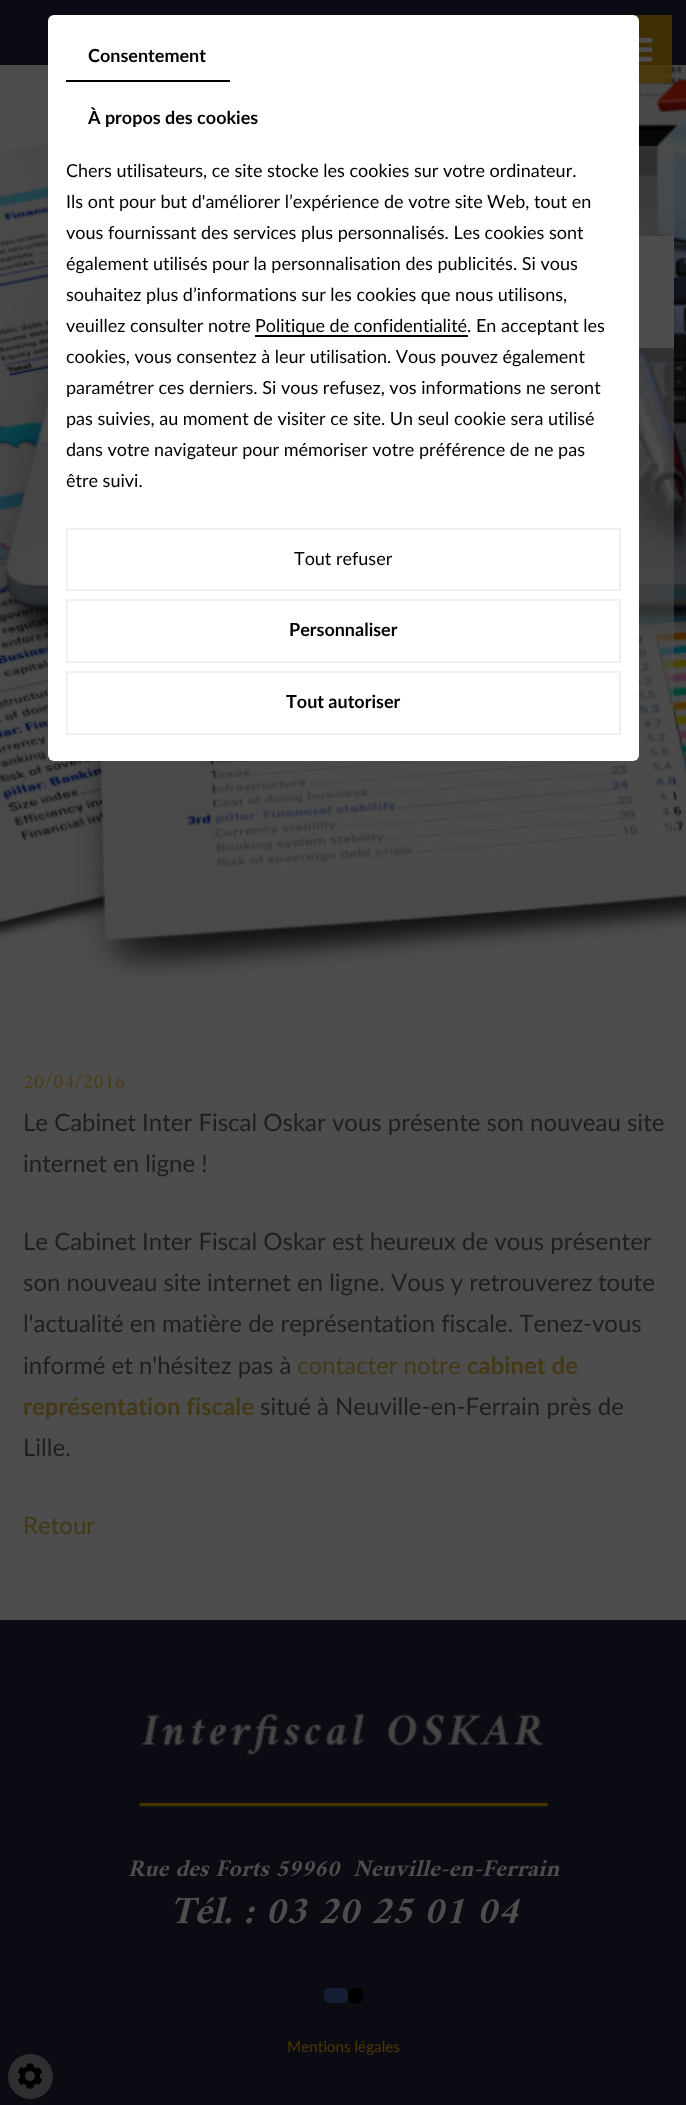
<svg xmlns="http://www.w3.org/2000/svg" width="686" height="2105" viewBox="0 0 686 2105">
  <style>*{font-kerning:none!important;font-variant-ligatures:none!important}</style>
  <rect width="100%" height="100%" fill="#4d4d4d"/>
  <path d="M0 0h686v65H0z" fill="#0b0c13"/>
  <image x="0" y="65" width="686" height="914" href="img/2.png"/>
  <path d="M215 146h459v750H215z" fill="#4d4d4d99"/>
  <path d="M633 15h39v68H633z" fill="#4d3802cc"/>
  <rect x="48" y="15" width="591" height="746" rx="6" fill="#fff"/>
  <path d="M66 80h164v2H66z" fill="#000"/>
  <path d="M255 335h213v2H255z" fill="#000"/>
  <path d="M67 529h553v61H67z" fill="none" stroke="#f0f0f0" stroke-width="2"/>
  <path d="M67 600h553v62H67z" fill="none" stroke="#f0f0f0" stroke-width="2"/>
  <path d="M67 672h553v62H67z" fill="none" stroke="#f0f0f0" stroke-width="2"/>
  <path d="M639 236h35v112H639z" fill="#4d4d4d"/>
  <image x="639" y="37" width="14" height="25" href="img/1.png"/>
  <path d="M0 1620h686v485H0z" fill="#0b0c13"/>
  <image x="139" y="1712" width="409" height="95" href="img/3.png"/>
  <rect x="324" y="1988" width="24" height="15" rx="5" fill="#141f35"/>
  <rect x="348" y="1988" width="15" height="15" rx="5" fill="#000"/>
  <circle cx="30.5" cy="2076.5" r="22.5" fill="#2f2f32"/>
  <image x="17" y="2063" width="26" height="26" href="img/4.png"/>
  <g font-family="Lato" font-size="18" font-weight="bold" fill="#000">
    <text x="88" y="62">Consentement</text>
    <text x="88" y="124">À propos des cookies</text>
  </g>
  <g font-family="Lato" font-size="18" fill="#000">
    <text x="66" y="177">Chers utilisateurs, ce site stocke les cookies sur votre ordinateur.</text>
    <text x="66" y="208">Ils ont pour but d'améliorer l’expérience de votre site</text>
    <text x="487" y="208">Web, tout en</text>
    <text x="66" y="239">vous fournissant des services plus personnalisés. Les cookies sont</text>
    <text x="66" y="270">également utilisés pour la personnalisation des publicités. Si vous</text>
    <text x="66" y="301">souhaitez plus d’informations sur les cookies que nous utilisons,</text>
    <text x="66" y="332">veuillez consulter notre</text>
    <text x="255" y="332">Politique de confidentialité. En acceptant les</text>
    <text x="66" y="363">cookies, vous consentez à leur utilisation. Vous pouvez également</text>
    <text x="66" y="394">paramétrer ces derniers. Si vous refusez, vos informations ne seront</text>
    <text x="66" y="425">pas suivies, au moment de visiter ce site. Un seul cookie sera utilisé</text>
    <text x="66" y="456">dans votre navigateur pour mémoriser votre</text>
    <text x="419" y="456">préférence de ne pas</text>
    <text x="66" y="487">être suivi.</text>
    <text x="294" y="565">Tout refuser</text>
  </g>
  <g font-family="Lato" font-size="18" font-weight="bold" fill="#000">
    <text x="289" y="636">Personnaliser</text>
    <text x="286" y="708">Tout autoriser</text>
  </g>
  <text x="23" y="1088" font-family="Amiri" font-size="20.25" fill="#4d3c11">20/04/2016</text>
  <g font-family="Lato" font-size="24" fill="#1f1f1f">
    <text x="23" y="1131">Le Cabinet Inter Fiscal Oskar vous présente son nouveau site</text>
    <text x="23" y="1172">internet en ligne !</text>
    <text x="23" y="1250">Le Cabinet Inter Fiscal Oskar est heureux de vous présenter</text>
    <text x="23" y="1291">son nouveau site internet en ligne. Vous y retrouverez</text>
    <text x="598" y="1291">toute</text>
    <text x="23" y="1332">l'actualité en matière de représentation fiscale. Tenez-vous</text>
    <text x="23" y="1374">informé et n'hésitez pas à</text>
  </g>
  <text x="297" y="1374" font-family="Lato" font-size="24" fill="#443815">contacter notre</text>
  <g font-family="Lato" font-size="24" font-weight="bold" fill="#443815">
    <text x="467" y="1374">cabinet de</text>
    <text x="23" y="1415">représentation fiscale</text>
  </g>
  <g font-family="Lato" font-size="24" fill="#1f1f1f">
    <text x="260" y="1415">situé à Neuville-en-Ferrain près de</text>
    <text x="23" y="1456">Lille.</text>
  </g>
  <text x="23" y="1534" font-family="Lato" font-size="24" fill="#443815">Retour</text>
  <g font-family="Amiri" font-size="24" font-weight="bold" font-style="italic" fill="#4d4d4d">
    <text x="128" y="1876">Rue des Forts 59960</text>
    <text x="353" y="1876">Neuville-en-Ferrain</text>
  </g>
  <text x="170" y="1923" font-family="Amiri" font-size="39" font-weight="bold" font-style="italic" fill="#4d4d4d">Tél. : 03 20 25 01 04</text>
  <text x="287" y="2052" font-family="Lato" font-size="15.25" fill="#4d3802">Mentions légales</text>
</svg>
